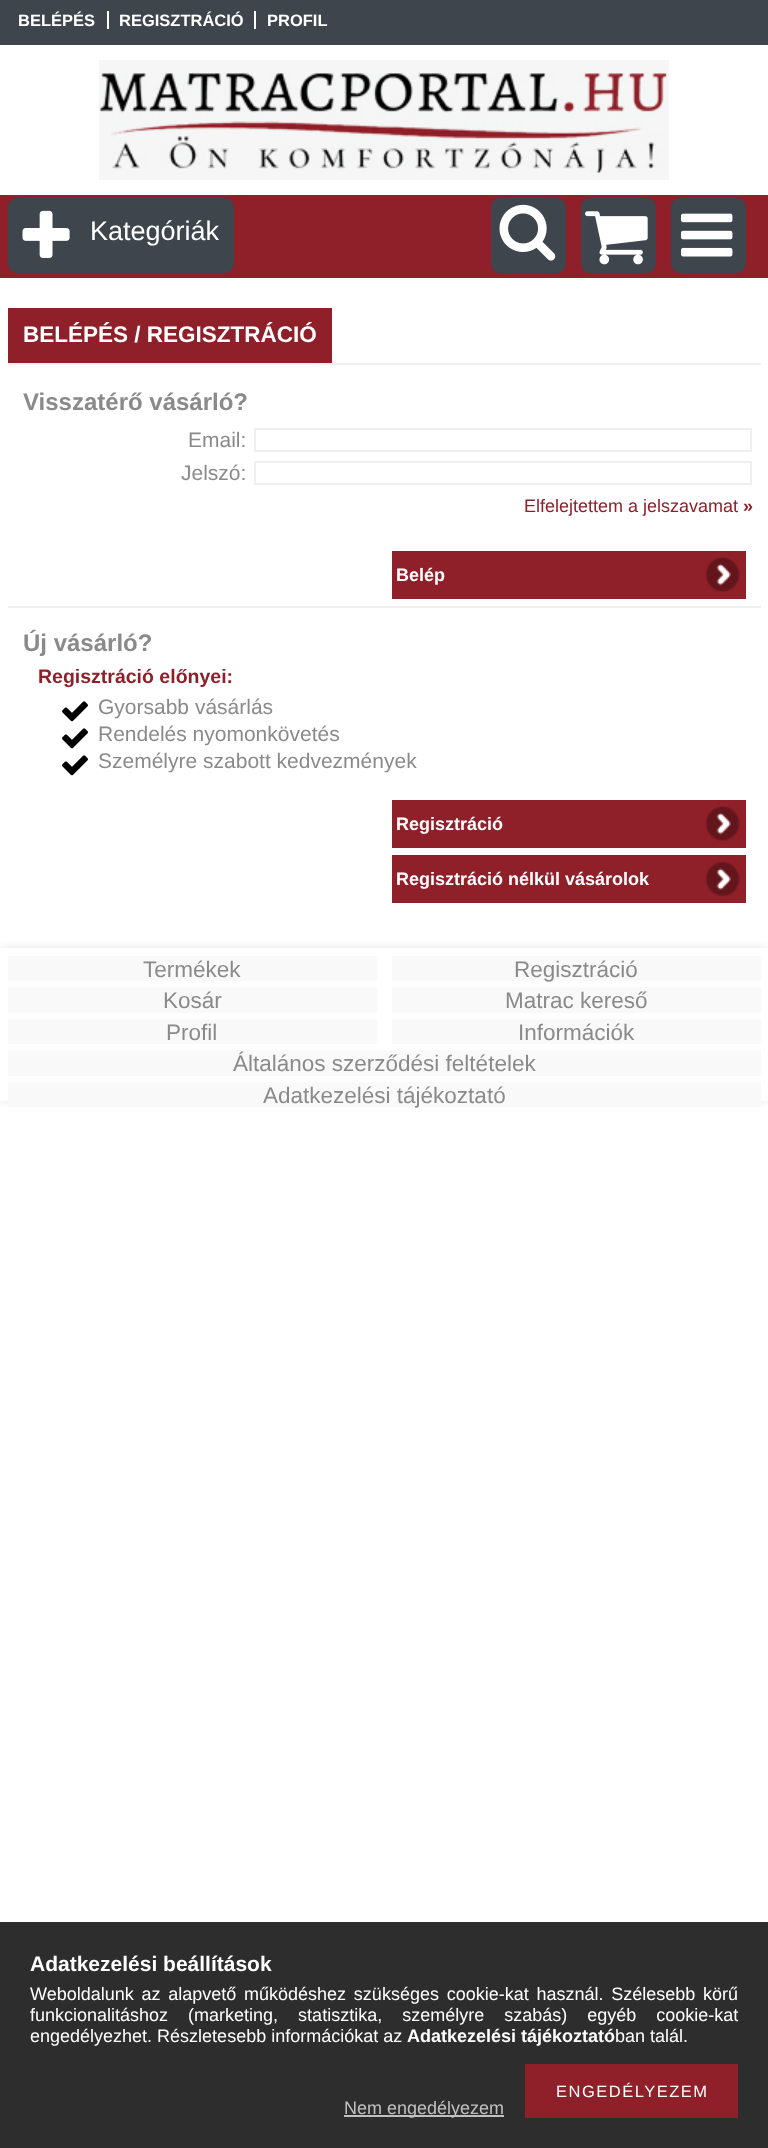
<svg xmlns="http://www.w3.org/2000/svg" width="768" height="2148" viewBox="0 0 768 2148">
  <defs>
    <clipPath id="clip1"><path d="M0 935H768V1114H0ZM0 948H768V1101H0Z" clip-rule="evenodd"/></clipPath>
  </defs>
  <rect width="100%" height="100%" fill="#fff"/>
  <path d="M0 0h768v45H0z" fill="#3e454c"/>
  <path d="M107 11h2v18H107z" fill="#fff"/>
  <path d="M254 11h2v18H254z" fill="#fff"/>
  <image x="99" y="60" width="570" height="120" href="img/1.png"/>
  <path d="M0 195h768v83H0z" fill="#8f1f29"/>
  <rect x="8" y="198" width="226" height="75" rx="9" fill="#3e454c"/>
  <image x="22" y="210" width="48" height="48" href="img/2.png"/>
  <rect x="491" y="198" width="75" height="75" rx="9" fill="#3e454c"/>
  <image x="499" y="204" width="57" height="57" href="img/3.png"/>
  <rect x="581" y="198" width="75" height="75" rx="9" fill="#3e454c"/>
  <image x="585" y="211" width="63" height="54" href="img/4.png"/>
  <rect x="671" y="198" width="75" height="75" rx="9" fill="#3e454c"/>
  <image x="681" y="213" width="52" height="44" href="img/5.png"/>
  <path d="M8 363h753v2H8z" fill="#efefef"/>
  <path d="M8 308h324v55H8z" fill="#8f1f29"/>
  <path d="M8 606h753v2H8z" fill="#efefef"/>
  <path d="M255 429h496v22H255z" fill="none" stroke="#efefef" stroke-width="2"/>
  <path d="M255 462h496v22H255z" fill="none" stroke="#efefef" stroke-width="2"/>
  <path d="M392 551h354v48H392z" fill="#8f1f29"/>
  <image x="705" y="557" width="35" height="35" href="img/6.png"/>
  <image x="62" y="701" width="26" height="21" href="img/7.png"/>
  <image x="62" y="728" width="26" height="21" href="img/7.png"/>
  <image x="62" y="755" width="26" height="21" href="img/7.png"/>
  <path d="M392 800h354v48H392z" fill="#8f1f29"/>
  <image x="705" y="806" width="35" height="35" href="img/6.png"/>
  <path d="M392 855h354v48H392z" fill="#8f1f29"/>
  <image x="705" y="861" width="35" height="36" href="img/8.png"/>
  <g clip-path="url(#clip1)">
    <path d="M0 948h768v153H0z" fill="#0000001a" filter="blur(4px)"/>
  </g>
  <path d="M8 956h369v25H8z" fill="#f9f9f9"/>
  <path d="M392 956h369v25H392z" fill="#f9f9f9"/>
  <path d="M8 987h369v26H8z" fill="#f9f9f9"/>
  <path d="M392 987h369v26H392z" fill="#f9f9f9"/>
  <path d="M8 1019h369v25H8z" fill="#f9f9f9"/>
  <path d="M392 1019h369v25H392z" fill="#f9f9f9"/>
  <path d="M8 1050h753v26H8z" fill="#f9f9f9"/>
  <path d="M8 1082h753v25H8z" fill="#f9f9f9"/>
  <path d="M0 1922h768v226H0z" fill="#2d2d2d"/>
  <path d="M525 2064h213v54H525z" fill="#8f1f29"/>
  <path d="M344 2115h160v2H344z" fill="#c0c0c0"/>
  <g font-family="Liberation Sans" font-size="16.5" font-weight="bold" fill="#fff">
    <text x="18" y="26">BELÉPÉS</text>
    <text x="119" y="26">REGISZTRÁCIÓ</text>
    <text x="267" y="26">PROFIL</text>
  </g>
  <text x="90" y="240" font-family="Liberation Sans" font-size="27" fill="#fff">Kategóriák</text>
  <text x="23" y="342" font-family="Liberation Sans" font-size="22.5" font-weight="bold" fill="#fff">BELÉPÉS / REGISZTRÁCIÓ</text>
  <text x="23" y="410" font-family="Liberation Sans" font-size="24" font-weight="bold" fill="#8b8a8a">Visszatérő vásárló?</text>
  <g font-family="Liberation Sans" font-size="21" fill="#8b8a8a">
    <text x="188" y="447">Email:</text>
    <text x="181" y="480">Jelszó:</text>
  </g>
  <text x="524" y="512" font-family="Liberation Sans" font-size="18" fill="#8f1f29">Elfelejtettem a jelszavamat</text>
  <text x="743" y="512" font-family="Liberation Sans" font-size="18" font-weight="bold" fill="#8f1f29">»</text>
  <text x="396" y="581" font-family="Liberation Sans" font-size="18" font-weight="bold" fill="#fff">Belép</text>
  <text x="23" y="651" font-family="Liberation Sans" font-size="24" font-weight="bold" fill="#8b8a8a">Új vásárló?</text>
  <text x="38" y="683" font-family="Liberation Sans" font-size="19.5" font-weight="bold" fill="#8f1f29">Regisztráció előnyei:</text>
  <g font-family="Liberation Sans" font-size="21" fill="#8b8a8a">
    <text x="98" y="714">Gyorsabb vásárlás</text>
    <text x="98" y="741">Rendelés nyomonkövetés</text>
    <text x="98" y="768">Személyre szabott kedvezmények</text>
  </g>
  <g font-family="Liberation Sans" font-size="18" font-weight="bold" fill="#fff">
    <text x="396" y="830">Regisztráció</text>
    <text x="396" y="885">Regisztráció nélkül vásárolok</text>
  </g>
  <g font-family="Liberation Sans" font-size="22.5" fill="#8b8a8a">
    <text x="143" y="977">Termékek</text>
    <text x="514" y="977">Regisztráció</text>
    <text x="163" y="1008">Kosár</text>
    <text x="505" y="1008">Matrac kereső</text>
    <text x="166" y="1040">Profil</text>
    <text x="518" y="1040">Információk</text>
    <text x="233" y="1071">Általános szerződési feltételek</text>
    <text x="263" y="1103">Adatkezelési tájékoztató</text>
  </g>
  <text x="30" y="1971" font-family="Liberation Sans" font-size="21" font-weight="bold" fill="#fff">Adatkezelési beállítások</text>
  <g font-family="Liberation Sans" font-size="18" fill="#fff">
    <text x="30" y="2000" word-spacing="2.75">Weboldalunk az alapvető működéshez szükséges cookie-kat használ. Szélesebb körű</text>
    <text x="30" y="2021" word-spacing="15">funkcionalitáshoz (marketing, statisztika, személyre szabás) egyéb cookie-kat</text>
    <text x="30" y="2042">engedélyezhet. Részletesebb információkat az</text>
  </g>
  <text x="407" y="2042" font-family="Liberation Sans" font-size="18" font-weight="bold" fill="#fff">Adatkezelési tájékoztató</text>
  <text x="615" y="2042" font-family="Liberation Sans" font-size="18" fill="#fff">ban talál.</text>
  <text x="556" y="2097" font-family="Liberation Sans" font-size="16.5" letter-spacing="1.5" fill="#fff">ENGEDÉLYEZEM</text>
  <text x="344" y="2114" font-family="Liberation Sans" font-size="18" fill="#c0c0c0">Nem engedélyezem</text>
</svg>
